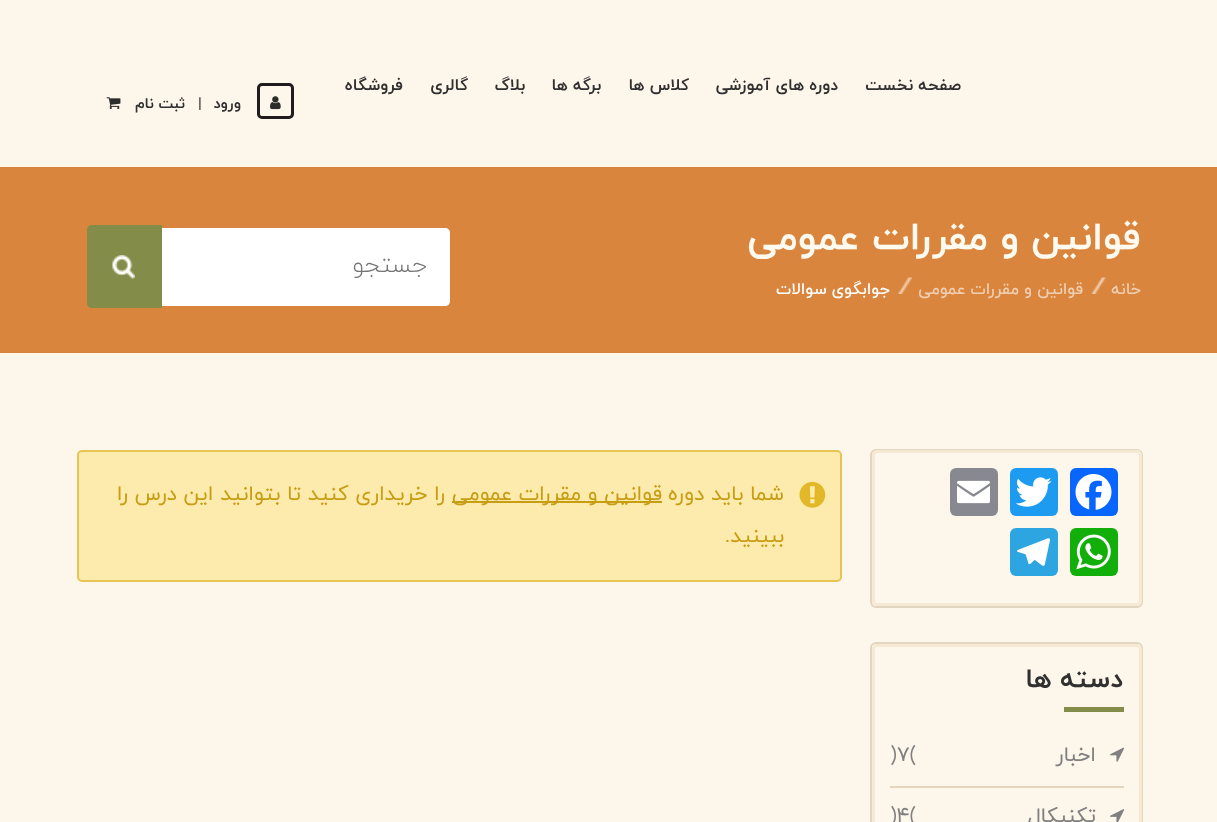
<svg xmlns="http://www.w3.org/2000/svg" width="1217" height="822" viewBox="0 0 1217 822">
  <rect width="100%" height="100%" fill="#fdf6ea"/>
  <rect x="258.5" y="84.5" width="34" height="33" rx="3.5" fill="none" stroke="#201c1d" stroke-width="3"/>
  <image x="270" y="96" width="11" height="14" href="img/1.png"/>
  <image x="106" y="97" width="15" height="13" href="img/2.png"/>
  <path d="M0 167h1217v186H0z" fill="#da853d"/>
  <image x="1091" y="277" width="15" height="17" href="img/3.png"/>
  <image x="897" y="277" width="15" height="17" href="img/4.png"/>
  <path d="M162 228H445C448 228 450 230 450 233V301C450 304 448 306 445 306H162Z" fill="#fff"/>
  <path d="M92 225H162V308H92C89 308 87 306 87 303V230C87 227 89 225 92 225Z" fill="#838c48"/>
  <image x="112" y="255" width="23" height="24" href="img/5.png"/>
  <rect x="78" y="451" width="763" height="130" rx="4" fill="#fdebae" stroke="#e6c555" stroke-width="2"/>
  <image x="799" y="481" width="27" height="27" href="img/6.png"/>
  <path d="M452 501h210v2H452z" fill="#c79d13"/>
  <rect x="871" y="450" width="271" height="157" rx="5" fill="none" stroke="#e2d6c1" stroke-width="2"/>
  <rect x="873.5" y="451.5" width="267" height="153" rx="3.5" fill="none" stroke="#f5e9d4" stroke-width="3"/>
  <rect x="1070" y="468" width="48" height="48" rx="6" fill="#0866ff"/>
  <image x="1075" y="474" width="37" height="36" href="img/7.png"/>
  <rect x="1010" y="468" width="48" height="48" rx="6" fill="#1d9bf0"/>
  <image x="1015" y="477" width="37" height="30" href="img/8.png"/>
  <rect x="950" y="468" width="48" height="48" rx="6" fill="#888990"/>
  <image x="957" y="480" width="33" height="24" href="img/9.png"/>
  <rect x="1070" y="528" width="48" height="48" rx="6" fill="#12af0a"/>
  <image x="1076" y="534" width="35" height="36" href="img/10.png"/>
  <rect x="1010" y="528" width="48" height="48" rx="6" fill="#2ca5e0"/>
  <image x="1017" y="538" width="33" height="28" href="img/11.png"/>
  <rect x="871" y="643" width="271" height="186" rx="5" fill="none" stroke="#e2d6c1" stroke-width="2"/>
  <rect x="873.5" y="645.5" width="267" height="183" rx="3.5" fill="none" stroke="#f5e9d4" stroke-width="3"/>
  <path d="M1064 707h60v5H1064z" fill="#838c48"/>
  <path d="M890 786h234v2H890z" fill="#e4d5bc"/>
  <image x="1110" y="747" width="15" height="15" href="img/12.png"/>
  <image x="1110" y="809" width="15" height="13" href="img/13.png"/>
  <g font-family="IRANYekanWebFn" font-size="16.5" font-weight="bold" direction="rtl" fill="#303030">
    <text x="961" y="90">صفحه نخست</text>
    <text x="838" y="90">دوره های آموزشی</text>
    <text x="689" y="90">کلاس ها</text>
    <text x="601" y="90">برگه ها</text>
    <text x="525" y="90">بلاگ</text>
    <text x="468" y="90">گالری</text>
    <text x="403" y="90">فروشگاه</text>
  </g>
  <text x="241" y="108" font-family="IRANYekanWebFn" font-size="15" font-weight="bold" direction="rtl" fill="#303030">ورود</text>
  <text x="198" y="108" font-family="IRANYekanWebFn" font-size="15" font-weight="bold" fill="#303030">|</text>
  <text x="185" y="108" font-family="IRANYekanWebFn" font-size="15" font-weight="bold" direction="rtl" fill="#303030">ثبت نام</text>
  <text x="1141" y="249" font-family="IRANYekanWebFn" font-size="39" font-weight="bold" direction="rtl" fill="#fffaf0">قوانین و مقررات عمومی</text>
  <g font-family="IRANYekanWebFn" font-size="16.5" font-weight="500" direction="rtl" fill="#f0ceb1">
    <text x="1141" y="294">خانه</text>
    <text x="1083" y="294">قوانین و مقررات عمومی</text>
  </g>
  <text x="890" y="294" font-family="IRANYekanWebFn" font-size="16.5" font-weight="500" direction="rtl" fill="#fff">جوابگوی سوالات</text>
  <text x="427" y="272" font-family="IRANYekanWebFn" font-size="24" font-weight="300" direction="rtl" fill="#757575">جستجو</text>
  <g font-family="IRANYekanWebFn" font-size="21" direction="rtl" fill="#c79d13">
    <text x="784" y="500">شما باید دوره</text>
    <text x="662" y="500">قوانین و مقررات عمومی</text>
    <text x="445" y="500">را خریداری کنید تا بتوانید این درس را</text>
    <text x="784" y="542">ببینید.</text>
  </g>
  <text x="1123" y="687" font-family="IRANYekanWebFn" font-size="27" font-weight="bold" direction="rtl" fill="#303030">دسته ها</text>
  <text x="1096" y="761" font-family="IRANYekanWebFn" font-size="21" direction="rtl" fill="#808080">اخبار</text>
  <text x="890" y="761" font-family="IRANYekanWebFn" font-size="21" fill="#808080">)۷(</text>
  <text x="1096" y="822" font-family="IRANYekanWebFn" font-size="21" direction="rtl" fill="#808080">تکنیکال</text>
  <text x="890" y="822" font-family="IRANYekanWebFn" font-size="21" fill="#808080">)۴(</text>
</svg>
